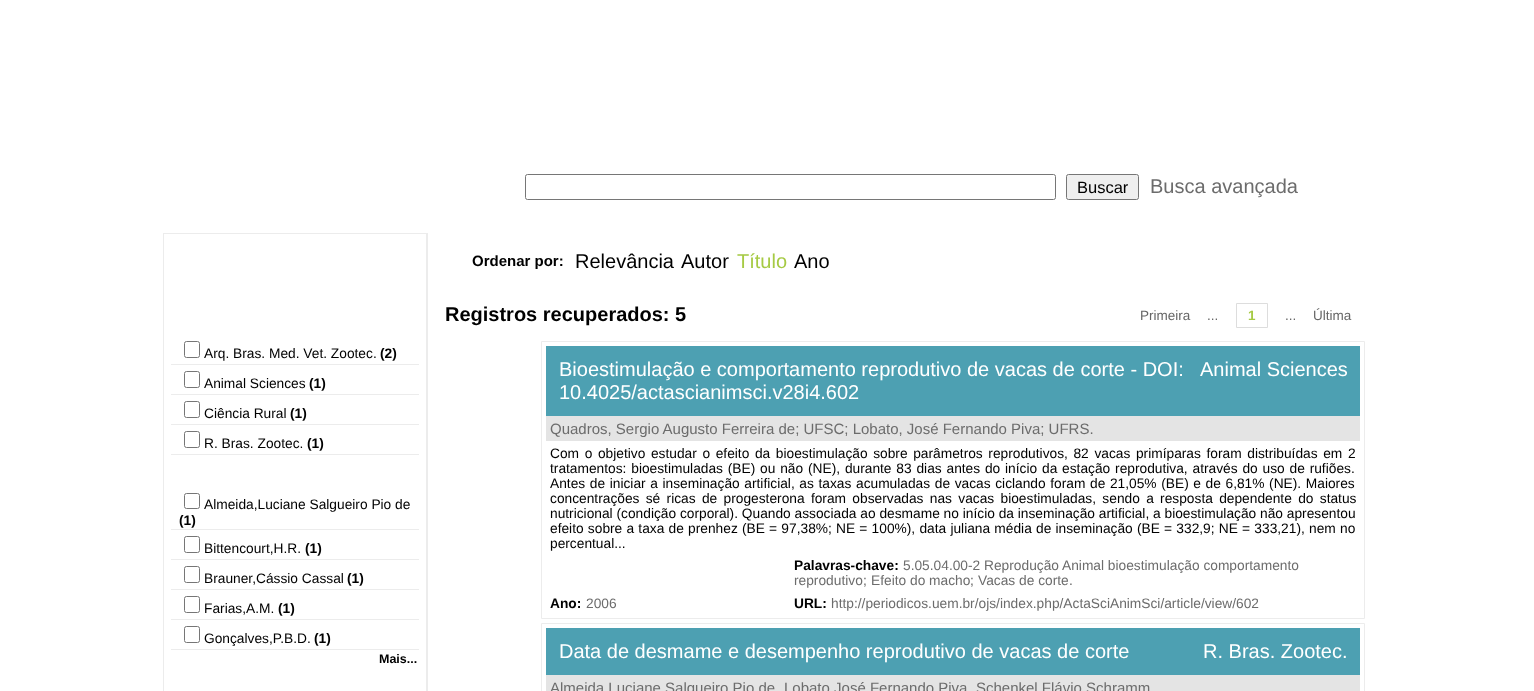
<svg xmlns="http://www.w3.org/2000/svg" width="1534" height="691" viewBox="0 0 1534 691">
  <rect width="100%" height="100%" fill="#fff"/>
  <rect x="525.5" y="174.5" width="530" height="25" rx="2" fill="none" stroke="#767676"/>
  <rect x="1066.5" y="174.5" width="72" height="25" rx="2" fill="#efefef" stroke="#767676"/>
  <path d="M163 233h265v458H163z" fill="#ececec"/>
  <path d="M164 234h262v457H164z" fill="#fff"/>
  <path d="M171 364h248v1H171z" fill="#ececec"/>
  <rect x="184.5" y="341.5" width="15" height="16" rx="2" fill="none" stroke="#767676"/>
  <path d="M171 394h248v1H171z" fill="#ececec"/>
  <rect x="184.5" y="371.5" width="15" height="16" rx="2" fill="none" stroke="#767676"/>
  <path d="M171 424h248v1H171z" fill="#ececec"/>
  <rect x="184.5" y="401.5" width="15" height="16" rx="2" fill="none" stroke="#767676"/>
  <path d="M171 454h248v1H171z" fill="#ececec"/>
  <rect x="184.5" y="431.5" width="15" height="16" rx="2" fill="none" stroke="#767676"/>
  <path d="M171 529h248v1H171z" fill="#ececec"/>
  <rect x="184.5" y="493.5" width="15" height="15" rx="2" fill="none" stroke="#767676"/>
  <path d="M171 559h248v1H171z" fill="#ececec"/>
  <rect x="184.5" y="536.5" width="15" height="16" rx="2" fill="none" stroke="#767676"/>
  <path d="M171 589h248v1H171z" fill="#ececec"/>
  <rect x="184.5" y="566.5" width="15" height="16" rx="2" fill="none" stroke="#767676"/>
  <path d="M171 619h248v1H171z" fill="#ececec"/>
  <rect x="184.5" y="596.5" width="15" height="16" rx="2" fill="none" stroke="#767676"/>
  <path d="M171 649h248v1H171z" fill="#ececec"/>
  <rect x="184.5" y="626.5" width="15" height="16" rx="2" fill="none" stroke="#767676"/>
  <path d="M1236.5 303.5h31v24H1236.5z" fill="none" stroke="#ddd"/>
  <path d="M541.5 341.5h823v277H541.5z" fill="none" stroke="#ececec"/>
  <path d="M546 346h814v70H546z" fill="#4da0b2"/>
  <path d="M546 416h814v25H546z" fill="#e4e4e4"/>
  <path d="M541.5 623.5h823v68H541.5z" fill="none" stroke="#ececec"/>
  <path d="M546 628h814v47H546z" fill="#4da0b2"/>
  <path d="M546 675h814v16H546z" fill="#e4e4e4"/>
  <text x="1077" y="193" font-family="Liberation Sans" font-size="16.5" fill="#000">Buscar</text>
  <text x="1150" y="193" font-family="Liberation Sans" font-size="20" fill="#6c6c6c">Busca avançada</text>
  <text x="204" y="358" font-family="Liberation Sans" font-size="13.75" fill="#000">Arq. Bras. Med. Vet. Zootec.</text>
  <text x="380" y="358" font-family="Liberation Sans" font-size="13.75" font-weight="bold" fill="#000">(2)</text>
  <text x="204" y="388" font-family="Liberation Sans" font-size="13.75" fill="#000">Animal Sciences</text>
  <text x="309" y="388" font-family="Liberation Sans" font-size="13.75" font-weight="bold" fill="#000">(1)</text>
  <text x="204" y="418" font-family="Liberation Sans" font-size="13.75" fill="#000">Ciência Rural</text>
  <text x="290" y="418" font-family="Liberation Sans" font-size="13.75" font-weight="bold" fill="#000">(1)</text>
  <text x="204" y="448" font-family="Liberation Sans" font-size="13.75" fill="#000">R. Bras. Zootec.</text>
  <text x="307" y="448" font-family="Liberation Sans" font-size="13.75" font-weight="bold" fill="#000">(1)</text>
  <text x="204" y="509" font-family="Liberation Sans" font-size="13.75" fill="#000">Almeida,Luciane Salgueiro Pio de</text>
  <text x="179" y="525" font-family="Liberation Sans" font-size="13.75" font-weight="bold" fill="#000">(1)</text>
  <text x="204" y="553" font-family="Liberation Sans" font-size="13.75" fill="#000">Bittencourt,H.R.</text>
  <text x="305" y="553" font-family="Liberation Sans" font-size="13.75" font-weight="bold" fill="#000">(1)</text>
  <text x="204" y="583" font-family="Liberation Sans" font-size="13.75" fill="#000">Brauner,Cássio Cassal</text>
  <text x="347" y="583" font-family="Liberation Sans" font-size="13.75" font-weight="bold" fill="#000">(1)</text>
  <text x="204" y="613" font-family="Liberation Sans" font-size="13.75" fill="#000">Farias,A.M.</text>
  <text x="278" y="613" font-family="Liberation Sans" font-size="13.75" font-weight="bold" fill="#000">(1)</text>
  <text x="204" y="643" font-family="Liberation Sans" font-size="13.75" fill="#000">Gonçalves,P.B.D.</text>
  <text x="314" y="643" font-family="Liberation Sans" font-size="13.75" font-weight="bold" fill="#000">(1)</text>
  <text x="379" y="663" font-family="Liberation Sans" font-size="12.5" font-weight="bold" fill="#000">Mais...</text>
  <text x="472" y="266" font-family="Liberation Sans" font-size="15" font-weight="bold" fill="#000">Ordenar por:</text>
  <g font-family="Liberation Sans" font-size="20" fill="#000">
    <text x="575" y="268">Relevância</text>
    <text x="681" y="268">Autor</text>
  </g>
  <text x="737" y="268" font-family="Liberation Sans" font-size="20" fill="#a6ca44">Título</text>
  <text x="794" y="268" font-family="Liberation Sans" font-size="20" fill="#000">Ano</text>
  <text x="445" y="321" font-family="Liberation Sans" font-size="20" font-weight="bold" fill="#000">Registros recuperados: 5</text>
  <g font-family="Liberation Sans" font-size="13.5" fill="#666">
    <text x="1140" y="320">Primeira</text>
    <text x="1207" y="320">...</text>
  </g>
  <text x="1248" y="320" font-family="Liberation Sans" font-size="13.5" font-weight="bold" fill="#a6ca44">1</text>
  <g font-family="Liberation Sans" font-size="13.5" fill="#666">
    <text x="1285" y="320">...</text>
    <text x="1313" y="320">Última</text>
  </g>
  <g font-family="Liberation Sans" font-size="20" fill="#fff">
    <text x="559" y="376">Bioestimulação e comportamento reprodutivo de vacas de corte - DOI:</text>
    <text x="559" y="399">10.4025/actascianimsci.v28i4.602</text>
    <text x="1200" y="376">Animal Sciences</text>
  </g>
  <text x="550" y="434" font-family="Liberation Sans" font-size="15" fill="#6c6c6c">Quadros, Sergio Augusto Ferreira de; UFSC; Lobato, José Fernando Piva; UFRS.</text>
  <g font-family="Liberation Sans" font-size="13.75" fill="#000">
    <text x="550" y="458" word-spacing="1.8">Com o objetivo estudar o efeito da bioestimulação sobre parâmetros reprodutivos, 82 vacas primíparas foram distribuídas em 2</text>
    <text x="550" y="473" word-spacing="1">tratamentos: bioestimuladas (BE) ou não (NE), durante 83 dias antes do início da estação reprodutiva, através do uso de rufiões.</text>
    <text x="550" y="488" word-spacing="0.8">Antes de iniciar a inseminação artificial, as taxas acumuladas de vacas ciclando foram de 21,05% (BE) e de 6,81% (NE). Maiores</text>
    <text x="550" y="503" word-spacing="2.5">concentrações sé ricas de progesterona foram observadas nas vacas bioestimuladas, sendo a resposta dependente do status</text>
    <text x="550" y="518">nutricional (condição corporal). Quando associada ao desmame no início da inseminação artificial, a bioestimulação não apresentou</text>
    <text x="550" y="533" word-spacing="0.4">efeito sobre a taxa de prenhez (BE = 97,38%; NE = 100%), data juliana média de inseminação (BE = 332,9; NE = 333,21), nem no</text>
    <text x="550" y="548">percentual...</text>
  </g>
  <text x="794" y="570" font-family="Liberation Sans" font-size="13.75" font-weight="bold" fill="#000">Palavras-chave:</text>
  <g font-family="Liberation Sans" font-size="13.75" fill="#6c6c6c">
    <text x="903" y="570">5.05.04.00-2 Reprodução Animal bioestimulação comportamento</text>
    <text x="794" y="585">reprodutivo</text>
  </g>
  <text x="863" y="585" font-family="Liberation Sans" font-size="13.75" fill="#666">;</text>
  <text x="871" y="585" font-family="Liberation Sans" font-size="13.75" fill="#6c6c6c">Efeito do macho</text>
  <text x="970" y="585" font-family="Liberation Sans" font-size="13.75" fill="#666">;</text>
  <text x="978" y="585" font-family="Liberation Sans" font-size="13.75" fill="#6c6c6c">Vacas de corte</text>
  <text x="1069" y="585" font-family="Liberation Sans" font-size="13.75" fill="#666">.</text>
  <text x="550" y="608" font-family="Liberation Sans" font-size="13.75" font-weight="bold" fill="#000">Ano:</text>
  <text x="586" y="608" font-family="Liberation Sans" font-size="13.75" fill="#6c6c6c">2006</text>
  <text x="794" y="608" font-family="Liberation Sans" font-size="13.75" font-weight="bold" fill="#000">URL:</text>
  <text x="831" y="608" font-family="Liberation Sans" font-size="13.75" fill="#6c6c6c">http://periodicos.uem.br/ojs/index.php/ActaSciAnimSci/article/view/602</text>
  <g font-family="Liberation Sans" font-size="20" fill="#fff">
    <text x="559" y="658">Data de desmame e desempenho reprodutivo de vacas de corte</text>
    <text x="1203" y="658">R. Bras. Zootec.</text>
  </g>
  <g font-family="Liberation Sans" font-size="15" fill="#6c6c6c">
    <text x="550" y="693">Almeida,Luciane Salgueiro Pio de</text>
    <text x="784" y="693">Lobato,José Fernando Piva</text>
    <text x="976" y="693">Schenkel,Flávio Schramm</text>
  </g>
</svg>
